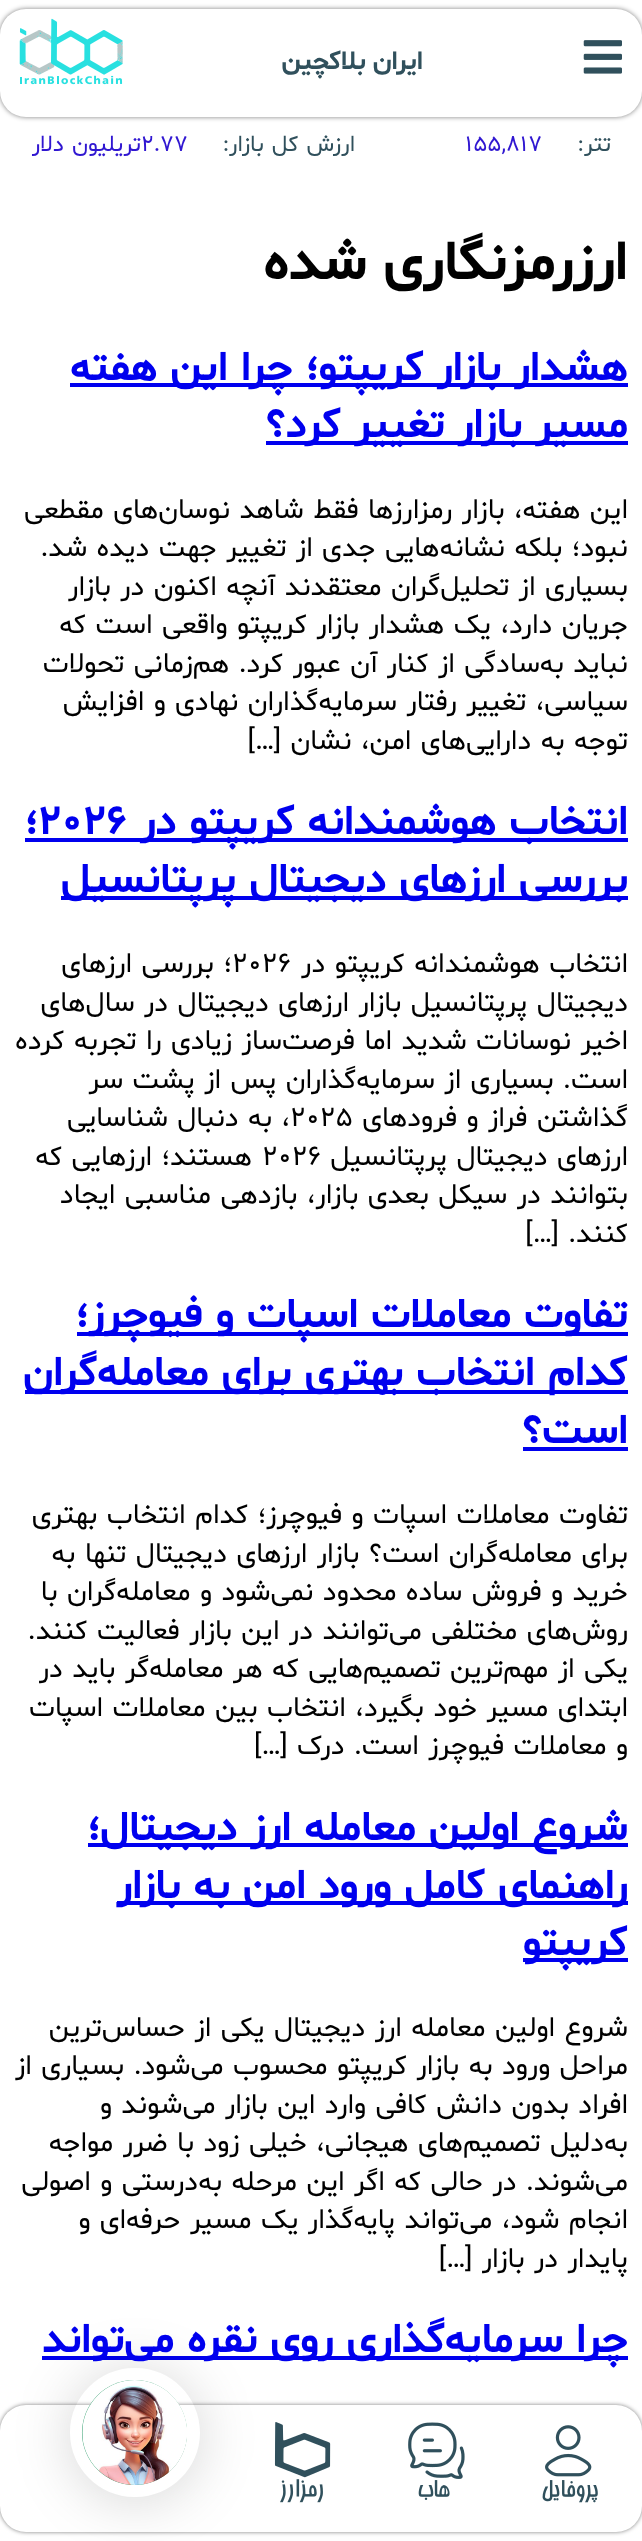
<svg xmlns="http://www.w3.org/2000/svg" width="642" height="2541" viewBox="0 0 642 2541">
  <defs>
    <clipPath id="clip1"><path d="M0 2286H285V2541H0ZM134.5 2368H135.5C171 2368 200 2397 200 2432.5C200 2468 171 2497 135.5 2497H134.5C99 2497 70 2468 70 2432.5C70 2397 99 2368 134.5 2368Z" clip-rule="evenodd"/></clipPath>
  </defs>
  <rect width="100%" height="100%" fill="#fff"/>
  <rect y="9" width="642" height="108" rx="26" fill="#00000080" filter="blur(2.5px)"/>
  <rect y="9" width="642" height="108" rx="26" fill="#fff"/>
  <image x="583" y="40" width="39" height="34" href="img/1.png"/>
  <image x="19" y="18" width="104" height="67" href="img/2.png"/>
  <path d="M70 383h558v4H70z" fill="#00e"/>
  <path d="M266 441h362v4H266z" fill="#00e"/>
  <path d="M25 838h603v4H25z" fill="#00e"/>
  <path d="M61 896h567v4H61z" fill="#00e"/>
  <path d="M77 1332h551v4H77z" fill="#00e"/>
  <path d="M25 1390h603v4H25z" fill="#00e"/>
  <path d="M523 1447h105v4H523z" fill="#00e"/>
  <path d="M88 1843h540v4H88z" fill="#00e"/>
  <path d="M117 1901h511v4H117z" fill="#00e"/>
  <path d="M523 1958h105v4H523z" fill="#00e"/>
  <path d="M42 2356h586v4H42z" fill="#00e"/>
  <rect y="2405" width="642" height="127" rx="26" fill="#00000080" filter="blur(2px)"/>
  <rect y="2405" width="642" height="127" rx="26" fill="#fff"/>
  <image x="274" y="2422" width="57" height="81" href="img/7.png"/>
  <g clip-path="url(#clip1)">
    <rect x="70" y="2371" width="130" height="130" rx="65" fill="#00000029" filter="blur(28px)"/>
  </g>
  <circle cx="134.5" cy="2432.5" r="52.5" fill="#0f8e55"/>
  <image x="99" y="2437" width="88" height="48" href="img/4.png"/>
  <image x="82" y="2380" width="105" height="105" href="img/3.png"/>
  <image x="542" y="2425" width="56" height="78" href="img/5.png"/>
  <image x="408" y="2422" width="57" height="78" href="img/6.png"/>
  <text x="423" y="69" font-family="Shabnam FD" font-size="26.25" font-weight="bold" direction="rtl" fill="#30505c">ایران بلاکچین</text>
  <text x="611" y="151" font-family="Shabnam FD" font-size="22.75" direction="rtl" fill="#30505c">تتر:</text>
  <text x="465" y="151" font-family="Shabnam FD" font-size="22.75" fill="#3017d1">155,817</text>
  <text x="355" y="151" word-spacing="1.75" font-family="Shabnam FD" font-size="22.75" direction="rtl" fill="#30505c">ارزش کل بازار:</text>
  <text x="141" y="151" font-family="Shabnam FD" font-size="22.75" fill="#3017d1">2.77</text>
  <text x="141" y="151" word-spacing="1.75" font-family="Shabnam FD" font-size="22.75" direction="rtl" fill="#3017d1">تریلیون دلار</text>
  <text x="628" y="279" word-spacing="1.75" font-family="Shabnam FD" font-size="56" font-weight="bold" direction="rtl" fill="#000">ارزرمزنگاری شده</text>
  <g font-family="Shabnam FD" font-size="42" font-weight="bold" direction="rtl" fill="#00e">
    <text x="628" y="380" word-spacing="1.75">هشدار بازار کریپتو؛ چرا این هفته</text>
    <text x="628" y="437" word-spacing="1.75">مسیر بازار تغییر کرد؟</text>
  </g>
  <g font-family="Shabnam FD" font-size="28" direction="rtl" fill="#000">
    <text x="628" y="518" word-spacing="1.75">این هفته، بازار رمزارزها فقط شاهد نوسان‌های مقطعی</text>
    <text x="628" y="556" word-spacing="1.75">نبود؛ بلکه نشانه‌هایی جدی از تغییر جهت دیده شد.</text>
    <text x="628" y="595" word-spacing="1.75">بسیاری از تحلیل‌گران معتقدند آنچه اکنون در بازار</text>
    <text x="628" y="633" word-spacing="1.75">جریان دارد، یک هشدار بازار کریپتو واقعی است که</text>
    <text x="628" y="672" word-spacing="1.75">نباید به‌سادگی از کنار آن عبور کرد. هم‌زمانی تحولات</text>
    <text x="628" y="710" word-spacing="1.75">سیاسی، تغییر رفتار سرمایه‌گذاران نهادی و افزایش</text>
    <text x="628" y="749" word-spacing="1.75">توجه به دارایی‌های امن، نشان […]</text>
  </g>
  <text x="628" y="834" word-spacing="1.75" font-family="Shabnam FD" font-size="42" font-weight="bold" direction="rtl" fill="#00e">انتخاب هوشمندانه کریپتو در</text>
  <text x="38" y="834" font-family="Shabnam FD" font-size="42" font-weight="bold" fill="#00e">۲۰۲۶</text>
  <g font-family="Shabnam FD" font-size="42" font-weight="bold" direction="rtl" fill="#00e">
    <text x="38" y="834">؛</text>
    <text x="628" y="892" word-spacing="1.75">بررسی ارزهای دیجیتال پرپتانسیل</text>
  </g>
  <text x="628" y="972" word-spacing="1.75" font-family="Shabnam FD" font-size="28" direction="rtl" fill="#000">انتخاب هوشمندانه کریپتو در</text>
  <text x="232" y="972" font-family="Shabnam FD" font-size="28" fill="#000">۲۰۲۶</text>
  <g font-family="Shabnam FD" font-size="28" direction="rtl" fill="#000">
    <text x="232" y="972" word-spacing="1.75">؛ بررسی ارزهای</text>
    <text x="628" y="1011" word-spacing="1.75">دیجیتال پرپتانسیل بازار ارزهای دیجیتال در سال‌های</text>
    <text x="628" y="1049" word-spacing="1.75">اخیر نوسانات شدید اما فرصت‌ساز زیادی را تجربه کرده</text>
    <text x="628" y="1088" word-spacing="1.75">است. بسیاری از سرمایه‌گذاران پس از پشت سر</text>
    <text x="628" y="1126" word-spacing="1.75">گذاشتن فراز و فرودهای</text>
  </g>
  <text x="290" y="1126" font-family="Shabnam FD" font-size="28" fill="#000">۲۰۲۵</text>
  <g font-family="Shabnam FD" font-size="28" direction="rtl" fill="#000">
    <text x="290" y="1126" word-spacing="1.75">، به دنبال شناسایی</text>
    <text x="628" y="1165" word-spacing="1.75">ارزهای دیجیتال پرپتانسیل</text>
  </g>
  <text x="262" y="1165" font-family="Shabnam FD" font-size="28" fill="#000">۲۰۲۶</text>
  <g font-family="Shabnam FD" font-size="28" direction="rtl" fill="#000">
    <text x="252" y="1165" word-spacing="1.75">هستند؛ ارزهایی که</text>
    <text x="628" y="1203" word-spacing="1.75">بتوانند در سیکل بعدی بازار، بازدهی مناسبی ایجاد</text>
    <text x="628" y="1242" word-spacing="1.75">کنند. […]</text>
  </g>
  <g font-family="Shabnam FD" font-size="42" font-weight="bold" direction="rtl" fill="#00e">
    <text x="628" y="1327" word-spacing="1.75">تفاوت معاملات اسپات و فیوچرز؛</text>
    <text x="628" y="1385" word-spacing="1.75">کدام انتخاب بهتری برای معامله‌گران</text>
    <text x="628" y="1443">است؟</text>
  </g>
  <g font-family="Shabnam FD" font-size="28" direction="rtl" fill="#000">
    <text x="628" y="1523" word-spacing="1.75">تفاوت معاملات اسپات و فیوچرز؛ کدام انتخاب بهتری</text>
    <text x="628" y="1562" word-spacing="1.75">برای معامله‌گران است؟ بازار ارزهای دیجیتال تنها به</text>
    <text x="628" y="1600" word-spacing="1.75">خرید و فروش ساده محدود نمی‌شود و معامله‌گران با</text>
    <text x="628" y="1639" word-spacing="1.75">روش‌های مختلفی می‌توانند در این بازار فعالیت کنند.</text>
    <text x="628" y="1677" word-spacing="1.75">یکی از مهم‌ترین تصمیم‌هایی که هر معامله‌گر باید در</text>
    <text x="628" y="1716" word-spacing="1.75">ابتدای مسیر خود بگیرد، انتخاب بین معاملات اسپات</text>
    <text x="628" y="1754" word-spacing="1.75">و معاملات فیوچرز است. درک […]</text>
  </g>
  <g font-family="Shabnam FD" font-size="42" font-weight="bold" direction="rtl" fill="#00e">
    <text x="628" y="1840" word-spacing="1.75">شروع اولین معامله ارز دیجیتال؛</text>
    <text x="628" y="1898" word-spacing="1.75">راهنمای کامل ورود امن به بازار</text>
    <text x="628" y="1955">کریپتو</text>
  </g>
  <g font-family="Shabnam FD" font-size="28" direction="rtl" fill="#000">
    <text x="628" y="2036" word-spacing="1.75">شروع اولین معامله ارز دیجیتال یکی از حساس‌ترین</text>
    <text x="628" y="2074" word-spacing="1.75">مراحل ورود به بازار کریپتو محسوب می‌شود. بسیاری از</text>
    <text x="628" y="2113" word-spacing="1.75">افراد بدون دانش کافی وارد این بازار می‌شوند و</text>
    <text x="628" y="2151" word-spacing="1.75">به‌دلیل تصمیم‌های هیجانی، خیلی زود با ضرر مواجه</text>
    <text x="628" y="2190" word-spacing="1.75">می‌شوند. در حالی که اگر این مرحله به‌درستی و اصولی</text>
    <text x="628" y="2228" word-spacing="1.75">انجام شود، می‌تواند پایه‌گذار یک مسیر حرفه‌ای و</text>
    <text x="628" y="2267" word-spacing="1.75">پایدار در بازار […]</text>
  </g>
  <text x="628" y="2352" word-spacing="1.75" font-family="Shabnam FD" font-size="42" font-weight="bold" direction="rtl" fill="#00e">چرا سرمایه‌گذاری روی نقره می‌تواند</text>
</svg>
